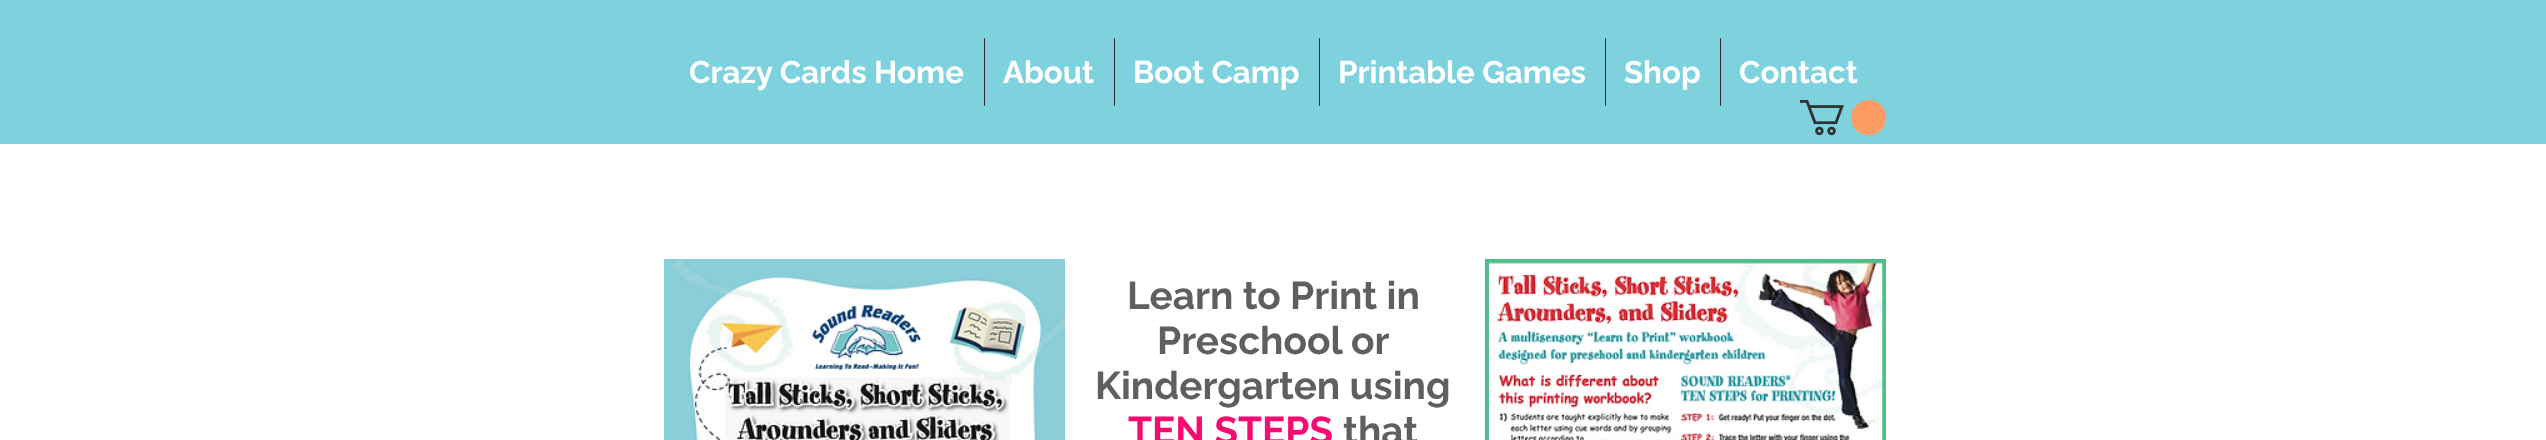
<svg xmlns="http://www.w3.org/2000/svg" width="2546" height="440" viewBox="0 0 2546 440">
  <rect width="100%" height="100%" fill="#fff"/>
  <path d="M0 0h2546v144H0z" fill="#7dd2de"/>
  <path d="M984 38h1v68H984z" fill="#303132"/>
  <path d="M1114 38h1v68H1114z" fill="#303132"/>
  <path d="M1319 38h1v68H1319z" fill="#303132"/>
  <path d="M1605 38h1v68H1605z" fill="#303132"/>
  <path d="M1720 38h1v68H1720z" fill="#303132"/>
  <image x="1800" y="100" width="87" height="36" href="img/1.png"/>
  <image x="663" y="258" width="402" height="182" href="img/2.png"/>
  <path d="M1485 259h401v181H1485z" fill="#4dbf88"/>
  <image x="1488" y="262" width="395" height="178" href="img/3.png"/>
  <g font-family="Raleway" font-size="31.25" font-weight="bold" fill="#fff">
    <text x="689" y="83">Crazy Cards Home</text>
    <text x="1003" y="83">About</text>
    <text x="1133" y="83">Boot Camp</text>
    <text x="1338" y="83">Printable Games</text>
    <text x="1624" y="83">Shop</text>
    <text x="1739" y="83">Contact</text>
  </g>
  <g font-family="Raleway" font-size="38.75" font-weight="bold" fill="#605e5e">
    <text x="1127" y="309">Learn to Print in</text>
    <text x="1157" y="354">Preschool or</text>
    <text x="1095" y="399">Kindergarten using</text>
  </g>
  <text x="1128" y="444" font-family="Raleway" font-size="38.75" font-weight="bold" fill="#f70b70">TEN STEPS</text>
  <text x="1343" y="444" font-family="Raleway" font-size="38.75" font-weight="bold" fill="#605e5e">that</text>
</svg>
